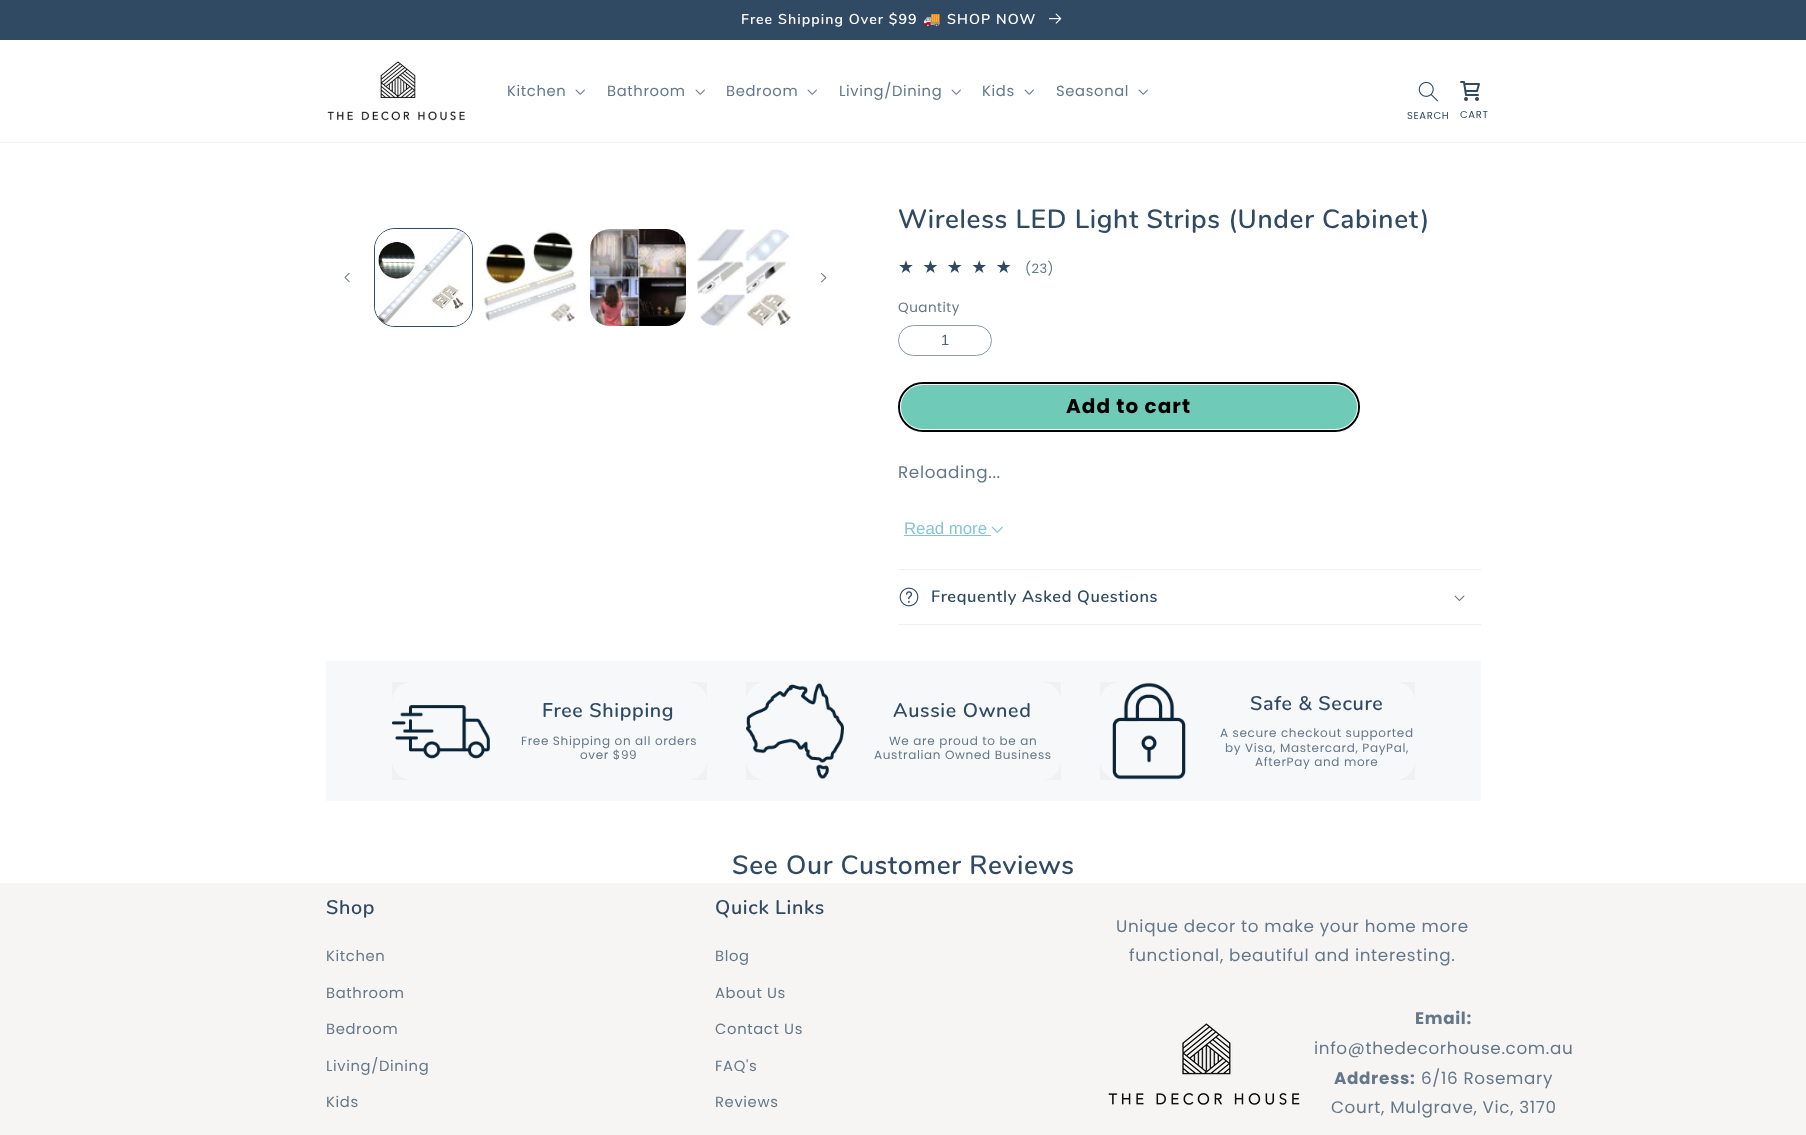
<svg xmlns="http://www.w3.org/2000/svg" width="1806" height="1135" viewBox="0 0 1806 1135">
  <defs>
    <linearGradient id="g1" gradientUnits="userSpaceOnUse" x1="898" y1="267" x2="1020" y2="267"><stop offset="1" stop-color="#304a63"/><stop offset="1" stop-color="#e0e4e8"/></linearGradient>
  </defs>
  <rect width="100%" height="100%" fill="#fff"/>
  <path d="M0 0h1806v40H0z" fill="#304a63"/>
  <image x="1049" y="13" width="13" height="11" href="img/1.png"/>
  <path d="M0 142h1806v1H0z" fill="#eef1f3"/>
  <image x="327" y="61" width="138" height="60" href="img/2.png"/>
  <image x="575" y="89" width="10" height="6" href="img/3.png"/>
  <image x="695" y="89" width="10" height="6" href="img/3.png"/>
  <image x="807" y="89" width="10" height="6" href="img/3.png"/>
  <image x="951" y="89" width="10" height="6" href="img/3.png"/>
  <image x="1024" y="89" width="10" height="6" href="img/3.png"/>
  <image x="1138" y="89" width="10" height="6" href="img/3.png"/>
  <image x="1418" y="81" width="20" height="21" href="img/4.png"/>
  <image x="1460" y="81" width="20" height="20" href="img/5.png"/>
  <image x="344" y="272" width="6" height="11" href="img/6.png"/>
  <rect x="374.5" y="228.5" width="98" height="98" rx="20.5" fill="none" stroke="#304a63"/>
  <image x="375" y="229" width="97" height="97" href="img/7.png"/>
  <image x="482" y="229" width="95" height="93" href="img/8.png"/>
  <image x="590" y="229" width="96" height="97" href="img/9.png"/>
  <image x="697" y="229" width="94" height="97" href="img/10.png"/>
  <image x="821" y="273" width="6" height="10" href="img/11.png"/>
  <rect x="898.5" y="325.5" width="93" height="30" rx="15" fill="none" stroke="#8d9ba9"/>
  <rect x="899" y="383" width="460" height="48" rx="24" fill="#6fcab7" stroke="#000" stroke-width="2"/>
  <rect x="900.5" y="384.5" width="457" height="45" rx="22.5" fill="none" stroke="#fff"/>
  <path d="M904 535h87v1H904z" fill="#85c6ce"/>
  <image x="991" y="526" width="12" height="7" href="img/12.png"/>
  <path d="M898 569h583v1H898z" fill="#eef1f3"/>
  <path d="M898 624h583v1H898z" fill="#eef1f3"/>
  <image x="899" y="587" width="20" height="20" href="img/13.png"/>
  <image x="1454" y="595" width="11" height="6" href="img/14.png"/>
  <path d="M326 661h1155v140H326z" fill="#f7f8f9"/>
  <rect x="392" y="682" width="315" height="98" rx="20" fill="#fff"/>
  <path d="M392 682h315v98H392z" fill="#304a630a"/>
  <image x="392" y="705" width="98" height="54" href="img/15.png"/>
  <rect x="746" y="682" width="315" height="98" rx="20" fill="#fff"/>
  <path d="M746 682h315v98H746z" fill="#304a630a"/>
  <image x="746" y="683" width="98" height="96" href="img/16.png"/>
  <rect x="1100" y="682" width="315" height="98" rx="20" fill="#fff"/>
  <path d="M1100 682h315v98H1100z" fill="#304a630a"/>
  <image x="1112" y="682" width="74" height="98" href="img/17.png"/>
  <path d="M0 883h1806v252H0z" fill="#f6f5f3"/>
  <image x="1108" y="1023" width="192" height="82" href="img/18.png"/>
  <text x="741" y="24" font-family="Nunito" font-size="14.25" font-weight="600" letter-spacing="1.05" fill="#fff">Free Shipping Over $99</text>
  <text x="923" y="24" font-family="Noto Color Emoji" font-size="14.25" letter-spacing="1.05" fill="#fff">🚚</text>
  <text x="947" y="24" font-family="Nunito" font-size="14.25" font-weight="600" letter-spacing="1.05" fill="#fff">SHOP NOW</text>
  <g font-family="Poppins" font-size="14.75" letter-spacing="0.65" fill="#64778a">
    <text x="507" y="96">Kitchen</text>
    <text x="607" y="96">Bathroom</text>
    <text x="726" y="96">Bedroom</text>
    <text x="839" y="96">Living/Dining</text>
    <text x="982" y="96">Kids</text>
    <text x="1056" y="96">Seasonal</text>
  </g>
  <g font-family="Poppins" font-size="10" letter-spacing="0.65" fill="#304a63">
    <text x="1407" y="119">SEARCH</text>
    <text x="1460" y="118">CART</text>
  </g>
  <text x="898" y="228" font-family="Nunito" font-size="26.4" font-weight="600" letter-spacing="0.65" fill="#304a63">Wireless LED Light Strips (Under Cabinet)</text>
  <text x="898" y="273" font-family="DejaVu Sans" font-size="17.75" letter-spacing="8.5" fill="url(#g1)">★★★★★</text>
  <text x="1025" y="273" font-family="Poppins" font-size="13" letter-spacing="0.5" fill="#64778a">(23)</text>
  <text x="898" y="312" font-family="Poppins" font-size="13.5" letter-spacing="0.5" fill="#64778a">Quantity</text>
  <text x="941" y="345" font-family="Liberation Sans" font-size="14.75" fill="#4f657a">1</text>
  <text x="1066" y="413" font-family="Poppins" font-size="20" font-weight="bold" letter-spacing="1.05" fill="#000">Add to cart</text>
  <text x="898" y="478" font-family="Poppins" font-size="16.8" letter-spacing="0.65" fill="#64778a">Reloading...</text>
  <text x="904" y="534" font-family="Liberation Sans" font-size="16.8" fill="#85c6ce">Read more</text>
  <text x="931" y="602" font-family="Nunito" font-size="16.5" font-weight="600" letter-spacing="0.65" fill="#304a63">Frequently Asked Questions</text>
  <text x="542" y="717" font-family="Nunito" font-size="19.75" font-weight="600" letter-spacing="0.65" fill="#304a63">Free Shipping</text>
  <g font-family="Poppins" font-size="12" letter-spacing="0.65" fill="#64778a">
    <text x="521" y="745">Free Shipping on all orders</text>
    <text x="580" y="759">over $99</text>
  </g>
  <text x="893" y="717" font-family="Nunito" font-size="19.75" font-weight="600" letter-spacing="0.65" fill="#304a63">Aussie Owned</text>
  <g font-family="Poppins" font-size="12" letter-spacing="0.65" fill="#64778a">
    <text x="889" y="745">We are proud to be an</text>
    <text x="874" y="759">Australian Owned Business</text>
  </g>
  <text x="1250" y="710" font-family="Nunito" font-size="19.75" font-weight="600" letter-spacing="0.65" fill="#304a63">Safe &amp; Secure</text>
  <g font-family="Poppins" font-size="12" letter-spacing="0.65" fill="#64778a">
    <text x="1220" y="737">A secure checkout supported</text>
    <text x="1225" y="752">by Visa, Mastercard, PayPal,</text>
    <text x="1255" y="766">AfterPay and more</text>
  </g>
  <text x="732" y="874" font-family="Nunito" font-size="26.4" font-weight="600" letter-spacing="0.65" fill="#304a63">See Our Customer Reviews</text>
  <text x="326" y="914" font-family="Nunito" font-size="19.75" font-weight="600" letter-spacing="0.65" fill="#304a63">Shop</text>
  <g font-family="Poppins" font-size="14.75" letter-spacing="0.65" fill="#64778a">
    <text x="326" y="961">Kitchen</text>
    <text x="326" y="998">Bathroom</text>
    <text x="326" y="1034">Bedroom</text>
    <text x="326" y="1071">Living/Dining</text>
    <text x="326" y="1107">Kids</text>
  </g>
  <text x="715" y="914" font-family="Nunito" font-size="19.75" font-weight="600" letter-spacing="0.65" fill="#304a63">Quick Links</text>
  <g font-family="Poppins" font-size="14.75" letter-spacing="0.65" fill="#64778a">
    <text x="715" y="961">Blog</text>
    <text x="715" y="998">About Us</text>
    <text x="715" y="1034">Contact Us</text>
    <text x="715" y="1071">FAQ's</text>
    <text x="715" y="1107">Reviews</text>
  </g>
  <g font-family="Poppins" font-size="16.8" letter-spacing="0.65" fill="#64778a">
    <text x="1116" y="932">Unique decor to make your home more</text>
    <text x="1129" y="961">functional, beautiful and interesting.</text>
  </g>
  <text x="1415" y="1024" font-family="Poppins" font-size="16.8" font-weight="bold" letter-spacing="0.65" fill="#64778a">Email:</text>
  <text x="1314" y="1054" font-family="Poppins" font-size="16.8" letter-spacing="0.65" fill="#64778a">info@thedecorhouse.com.au</text>
  <text x="1334" y="1084" font-family="Poppins" font-size="16.8" font-weight="bold" letter-spacing="0.65" fill="#64778a">Address:</text>
  <g font-family="Poppins" font-size="16.8" letter-spacing="0.65" fill="#64778a">
    <text x="1421" y="1084">6/16 Rosemary</text>
    <text x="1331" y="1113">Court, Mulgrave, Vic, 3170</text>
  </g>
</svg>
